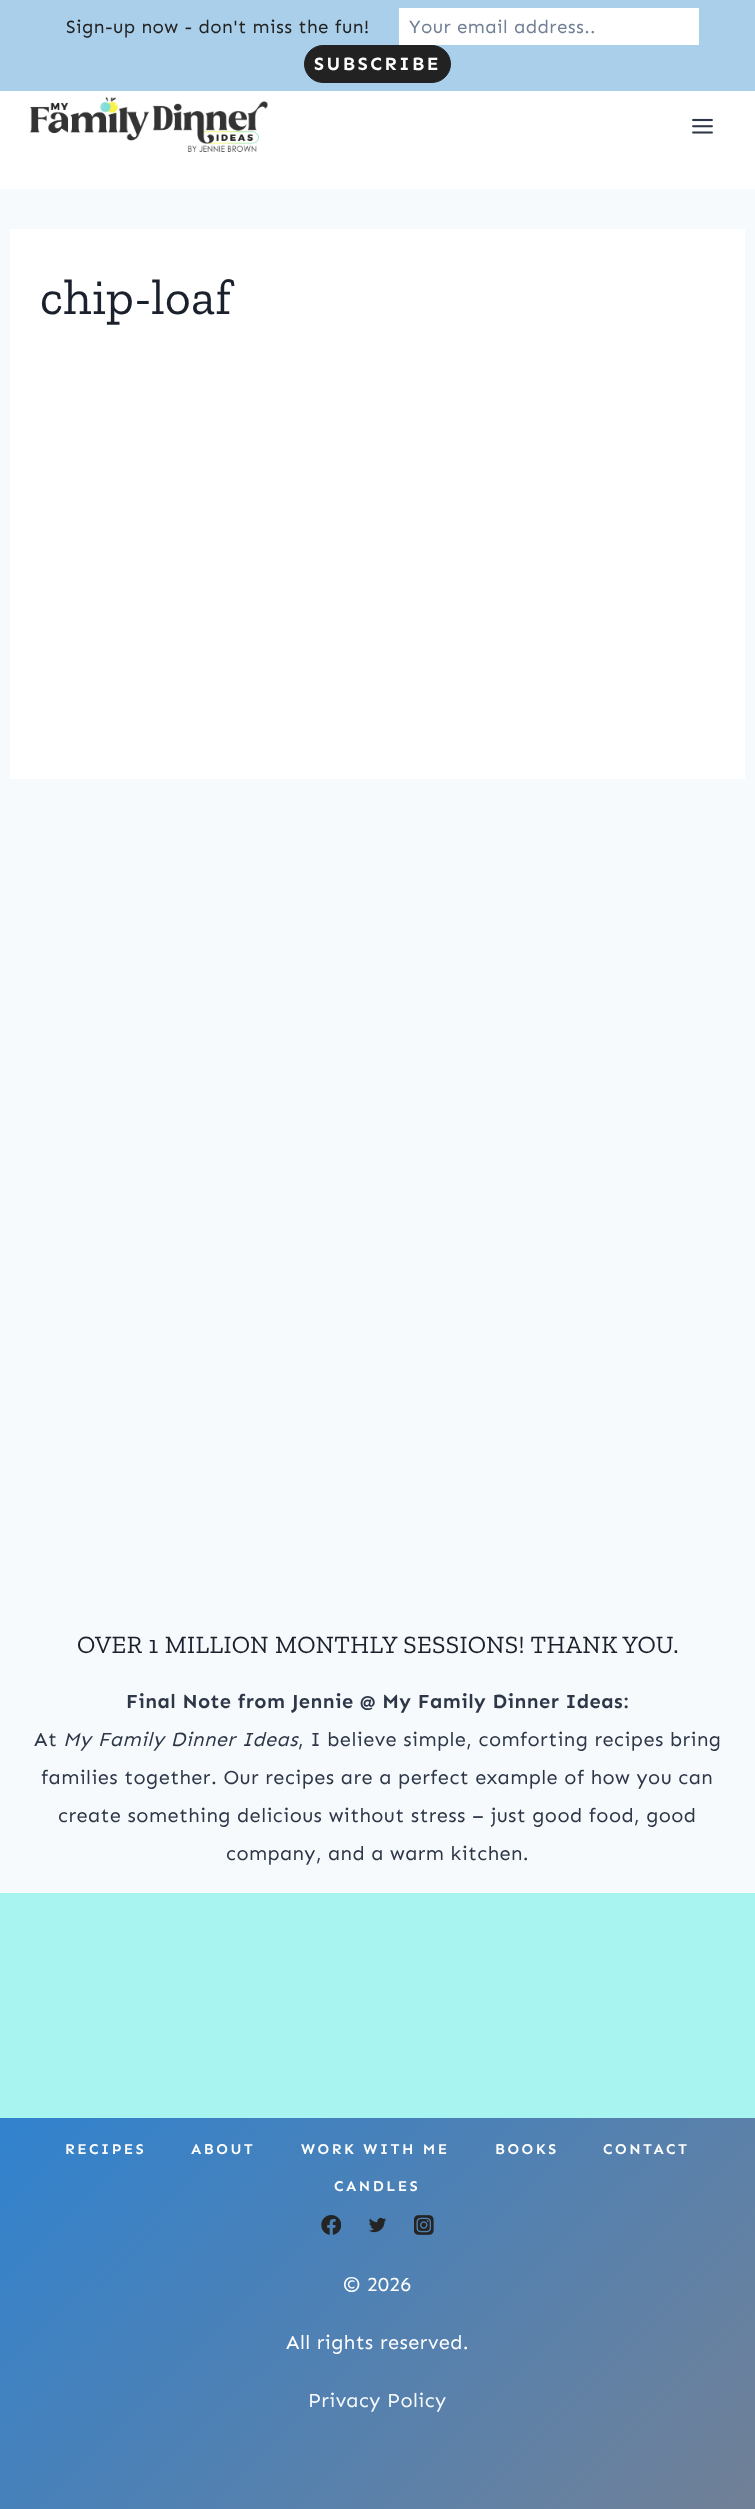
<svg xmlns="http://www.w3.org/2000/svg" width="755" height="2509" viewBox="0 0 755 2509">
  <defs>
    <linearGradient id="g1" gradientUnits="userSpaceOnUse" x1="91" y1="2027" x2="664" y2="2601"><stop offset="0" stop-color="#3182ce"/><stop offset="1" stop-color="#718096"/></linearGradient>
  </defs>
  <rect width="100%" height="100%" fill="#f7fafc"/>
  <path d="M0 0h755v91H0z" fill="#aacfea"/>
  <path d="M399 8h300v37H399z" fill="#fff"/>
  <rect x="304.5" y="45.5" width="146" height="37" rx="18.5" fill="#222" stroke="#222"/>
  <path d="M0 91h755v98H0z" fill="#fff"/>
  <image x="30" y="97" width="238" height="55" href="img/1.png"/>
  <image x="692" y="118" width="21" height="16" href="img/2.png"/>
  <path d="M10 229h735v550H10z" fill="#fff"/>
  <path d="M0 1893h755v225H0z" fill="#a7f4f0"/>
  <path d="M0 2118h755v391H0z" fill="url(#g1)"/>
  <image x="321" y="2215" width="20" height="20" href="img/3.png"/>
  <image x="369" y="2217" width="18" height="16" href="img/4.png"/>
  <image x="414" y="2215" width="20" height="20" href="img/5.png"/>
  <text x="66" y="33" font-family="Sen" font-size="18.75" letter-spacing="0.4" fill="#222">Sign-up now - don't miss the fun!</text>
  <text x="409" y="33" font-family="Sen" font-size="18.75" letter-spacing="0.4" fill="#718096">Your email address..</text>
  <text x="314" y="70" font-family="Sen" font-size="18.75" font-weight="bold" letter-spacing="2.5" fill="#fff">SUBSCRIBE</text>
  <text x="40" y="314" font-family="Zilla Slab" font-size="50" letter-spacing="0.4" fill="#1a202c">chip-loaf</text>
  <text x="77" y="1653" font-family="Zilla Slab" font-size="25" letter-spacing="0.4" fill="#1a202c">OVER 1 MILLION MONTHLY SESSIONS! THANK YOU.</text>
  <text x="126" y="1708" font-family="Sen" font-size="20" font-weight="bold" letter-spacing="0.4" fill="#2d3748">Final Note from Jennie @ My Family Dinner Ideas:</text>
  <text x="34" y="1746" font-family="Sen" font-size="20" letter-spacing="0.4" fill="#2d3748">At</text>
  <text x="63" y="1746" font-family="Sen" font-size="20" font-style="italic" letter-spacing="0.4" fill="#2d3748">My Family Dinner Ideas</text>
  <g font-family="Sen" font-size="20" letter-spacing="0.4" fill="#2d3748">
    <text x="298" y="1746">, I believe simple, comforting recipes bring</text>
    <text x="41" y="1784">families together. Our recipes are a perfect example of how you can</text>
    <text x="58" y="1822">create something delicious without stress – just good food, good</text>
    <text x="226" y="1860">company, and a warm kitchen.</text>
  </g>
  <g font-family="Sen" font-size="15" font-weight="600" letter-spacing="2.5" fill="#fff">
    <text x="65" y="2154">RECIPES</text>
    <text x="191" y="2154">ABOUT</text>
    <text x="301" y="2154">WORK WITH ME</text>
    <text x="495" y="2154">BOOKS</text>
    <text x="603" y="2154">CONTACT</text>
    <text x="334" y="2191">CANDLES</text>
  </g>
  <g font-family="Sen" font-size="20" letter-spacing="0.4" fill="#fff">
    <text x="343" y="2291">© 2026</text>
    <text x="286" y="2349">All rights reserved.</text>
  </g>
  <text x="308" y="2407" font-family="Sen" font-size="20" letter-spacing="0.4" fill="#f7fafc">Privacy Policy</text>
</svg>
